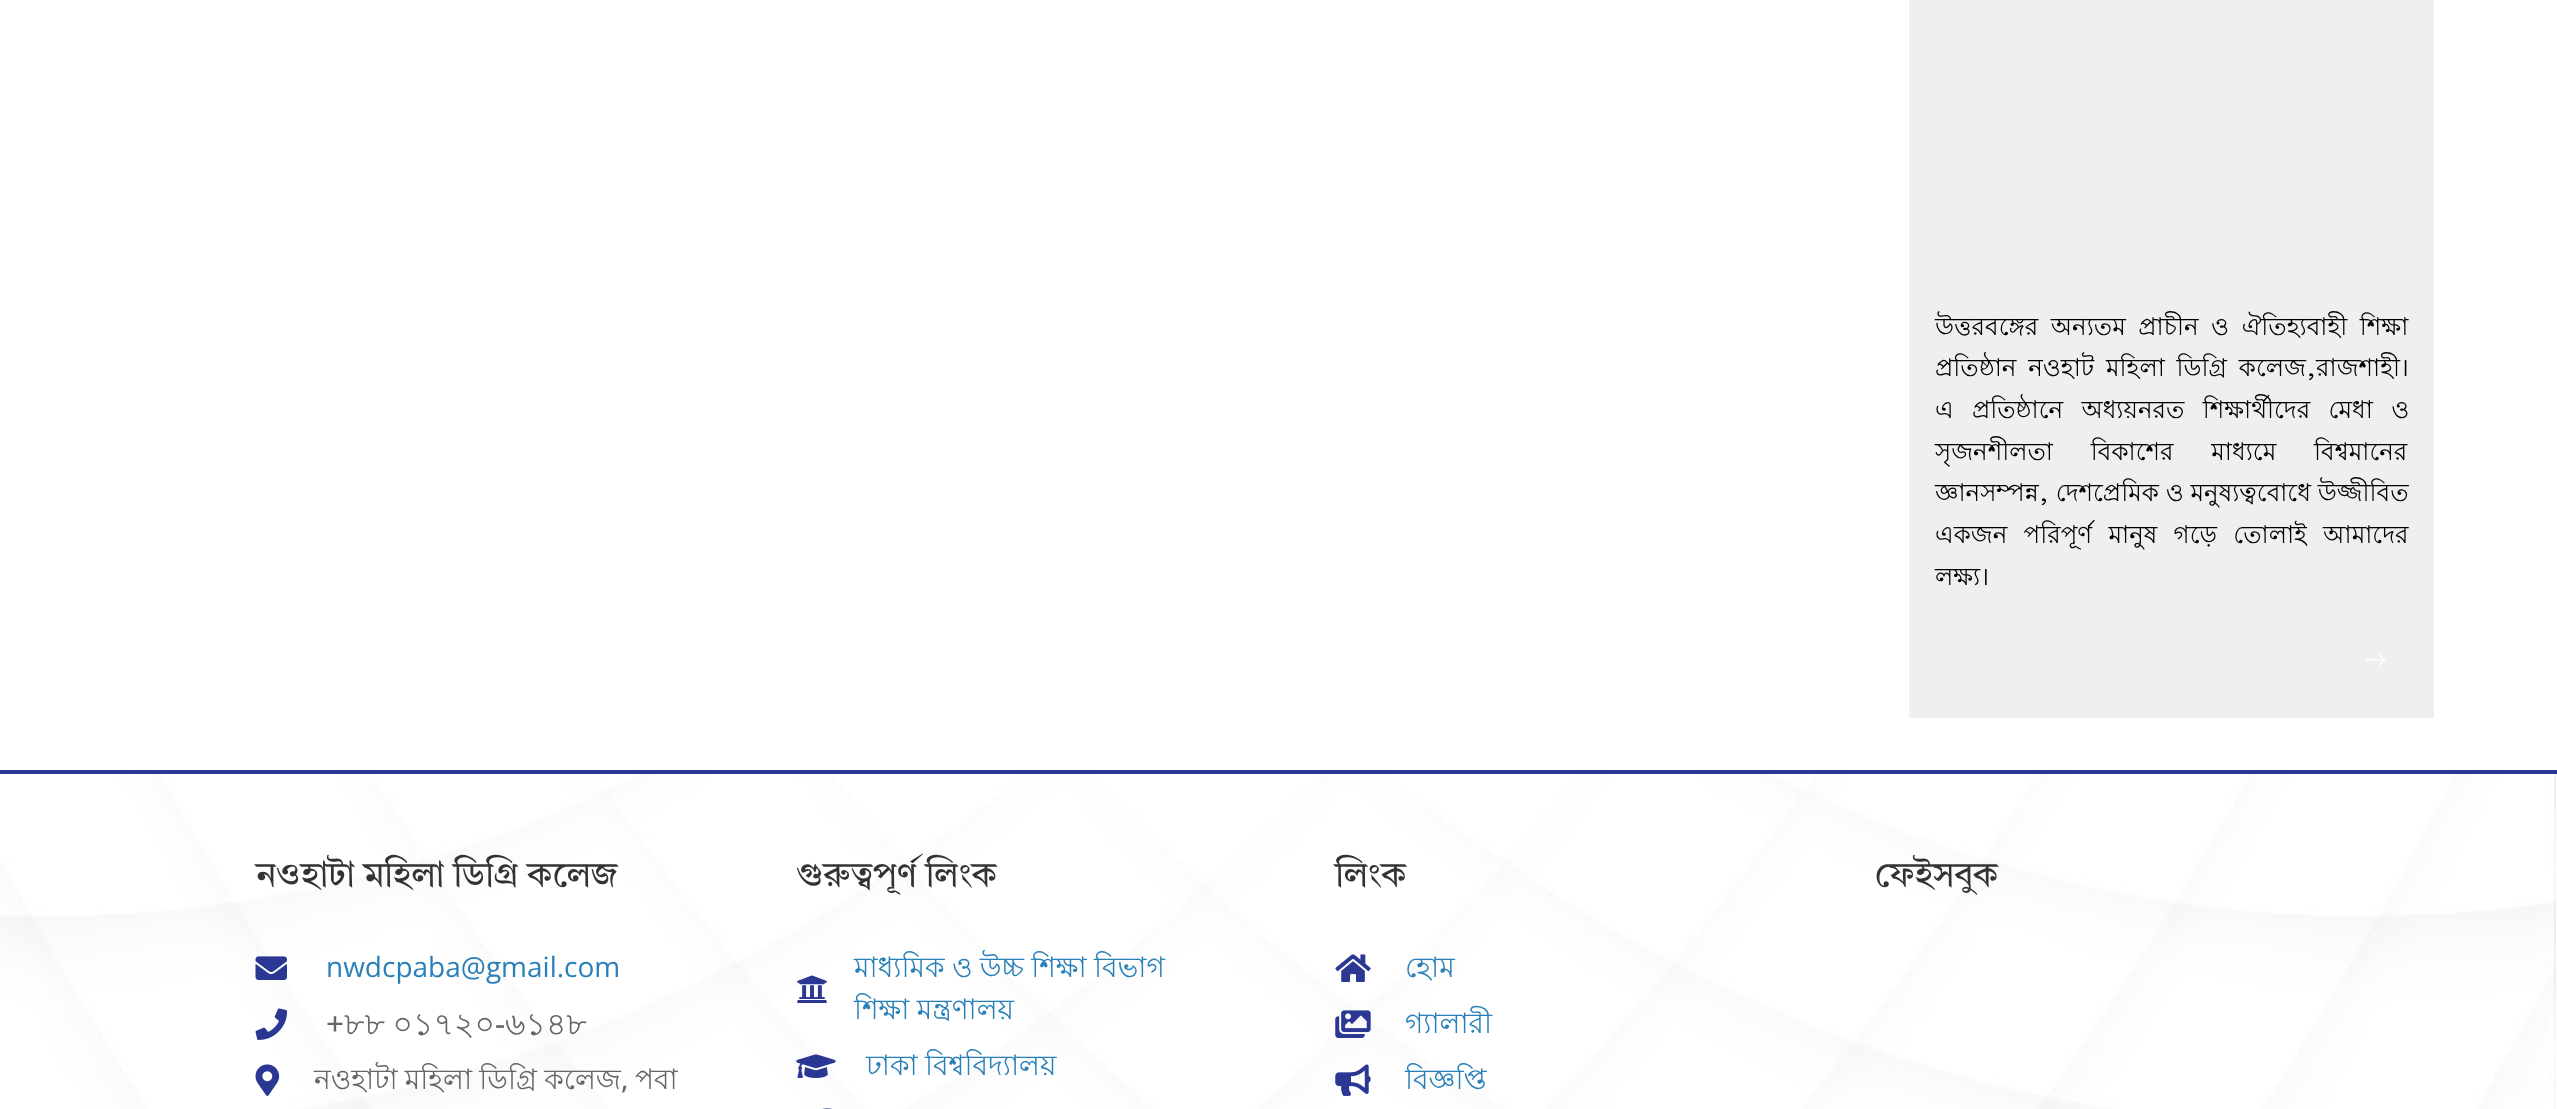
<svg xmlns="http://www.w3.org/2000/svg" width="2557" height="1109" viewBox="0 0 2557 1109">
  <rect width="100%" height="100%" fill="#fff"/>
  <path d="M1909 0h525v718H1909z" fill="#efefef"/>
  <image x="2366" y="654" width="20" height="12" href="img/1.png"/>
  <image x="0" y="774" width="2557" height="335" href="img/2.png"/>
  <path d="M0 770h2557v4H0z" fill="#2a3793"/>
  <image x="255" y="956" width="32" height="24" href="img/3.png"/>
  <image x="255" y="1008" width="33" height="32" href="img/4.png"/>
  <image x="255" y="1064" width="25" height="32" href="img/5.png"/>
  <image x="797" y="975" width="30" height="28" href="img/6.png"/>
  <image x="796" y="1054" width="40" height="24" href="img/7.png"/>
  <image x="822" y="1108" width="10" height="1" href="img/8.png"/>
  <image x="1335" y="954" width="36" height="28" href="img/9.png"/>
  <image x="1335" y="1010" width="36" height="28" href="img/10.png"/>
  <image x="1335" y="1064" width="36" height="32" href="img/11.png"/>
  <g font-family="Lohit Bengali" font-size="24.5" fill="#000">
    <text x="1935" y="335" word-spacing="5.75">উত্তরবঙ্গের অন্যতম প্রাচীন ও ঐতিহ্যবাহী শিক্ষা</text>
    <text x="1935" y="376" word-spacing="5">প্রতিষ্ঠান নওহাট মহিলা ডিগ্রি কলেজ,রাজশাহী।</text>
    <text x="1935" y="418" word-spacing="11.5">এ প্রতিষ্ঠানে অধ্যয়নরত শিক্ষার্থীদের মেধা ও</text>
    <text x="1935" y="460" word-spacing="31">সৃজনশীলতা বিকাশের মাধ্যমে বিশ্বমানের</text>
    <text x="1935" y="501">জ্ঞানসম্পন্ন, দেশপ্রেমিক ও মনুষ্যত্ববোধে উজ্জীবিত</text>
    <text x="1935" y="543" word-spacing="9.5">একজন পরিপূর্ণ মানুষ গড়ে তোলাই আমাদের</text>
    <text x="1935" y="585">লক্ষ্য।</text>
  </g>
  <text x="256" y="886" font-family="Tiro Bangla" font-size="35" fill="#333">নওহাটা মহিলা ডিগ্রি কলেজ</text>
  <text x="326" y="977" font-family="Open Sans" font-size="28" fill="#2980b9">nwdcpaba@gmail.com</text>
  <text x="326" y="1035" font-family="Open Sans" font-size="31.5" font-weight="500" fill="#666">+</text>
  <text x="344" y="1035" word-spacing="-1" font-family="Lohit Bengali" font-size="31.5" fill="#666">৮৮ ০১৭২০</text>
  <text x="495" y="1035" font-family="Open Sans" font-size="31.5" font-weight="500" fill="#666">-</text>
  <text x="505" y="1035" font-family="Lohit Bengali" font-size="31.5" fill="#666">৬১৪৮</text>
  <text x="314" y="1089" word-spacing="-0.5" font-family="Lohit Bengali" font-size="28" fill="#666">নওহাটা মহিলা ডিগ্রি কলেজ</text>
  <text x="621" y="1089" font-family="Open Sans" font-size="28" font-weight="500" fill="#666">,</text>
  <text x="635" y="1089" font-family="Lohit Bengali" font-size="28" fill="#666">পবা</text>
  <text x="796" y="886" font-family="Tiro Bangla" font-size="35" fill="#333">গুরুত্বপূর্ণ লিংক</text>
  <g font-family="Lohit Bengali" font-size="28" fill="#2980b9">
    <text x="854" y="977" word-spacing="-0.5">মাধ্যমিক ও উচ্চ শিক্ষা বিভাগ</text>
    <text x="854" y="1019" word-spacing="-0.5">শিক্ষা মন্ত্রণালয়</text>
    <text x="866" y="1075" word-spacing="-0.5">ঢাকা বিশ্ববিদ্যালয়</text>
  </g>
  <text x="1335" y="886" font-family="Tiro Bangla" font-size="35" fill="#333">লিংক</text>
  <g font-family="Lohit Bengali" font-size="28" fill="#2980b9">
    <text x="1405" y="977">হোম</text>
    <text x="1405" y="1033">গ্যালারী</text>
    <text x="1405" y="1089">বিজ্ঞপ্তি</text>
  </g>
  <text x="1875" y="886" font-family="Tiro Bangla" font-size="35" fill="#333">ফেইসবুক</text>
</svg>
